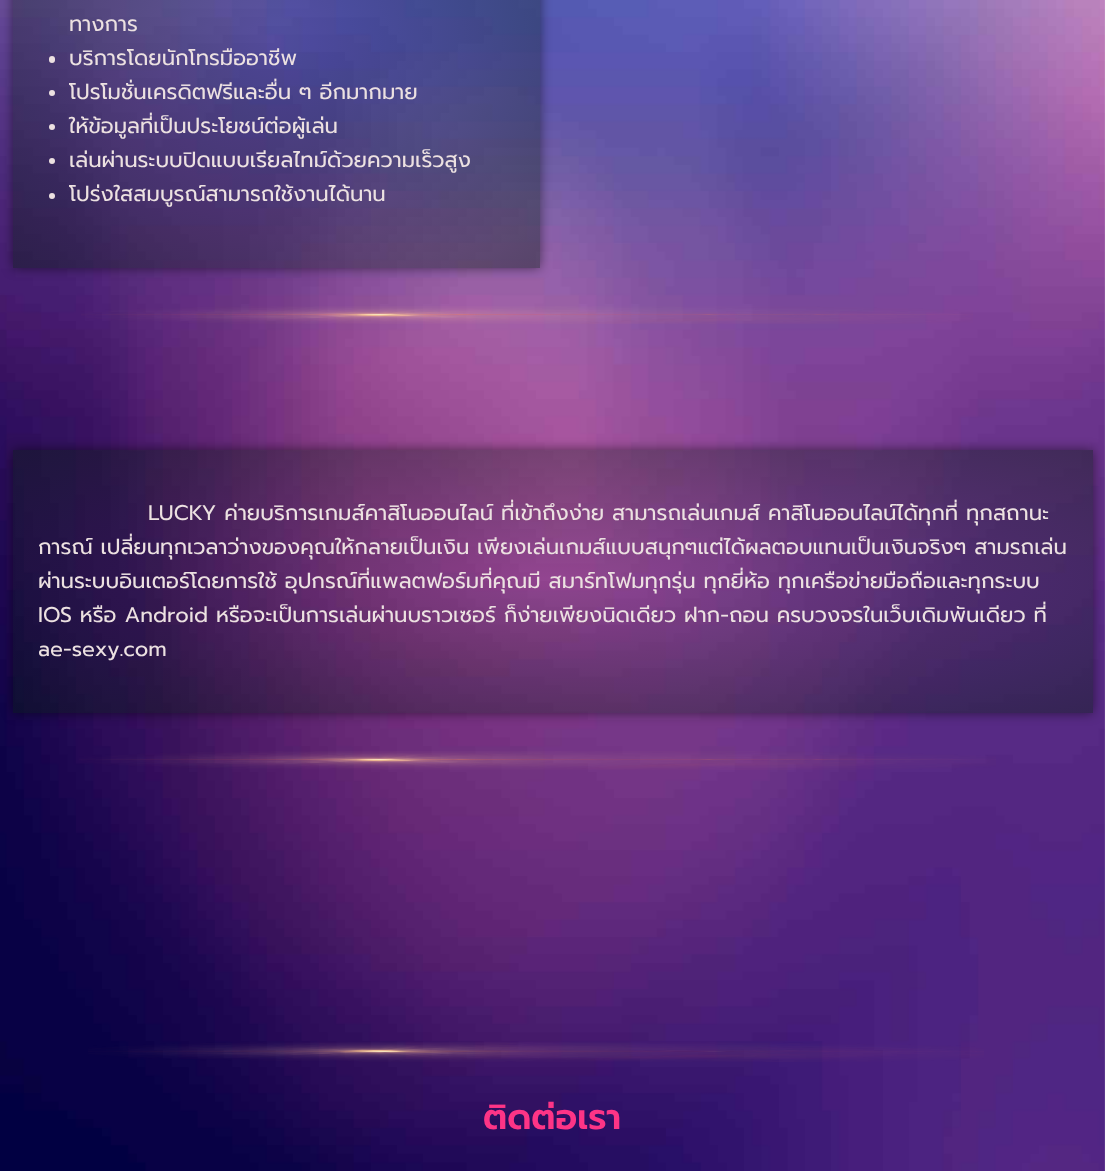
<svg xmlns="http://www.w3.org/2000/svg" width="1105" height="1171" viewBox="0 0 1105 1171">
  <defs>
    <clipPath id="clip1"><path d="M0 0H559V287H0ZM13-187H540V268H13Z" clip-rule="evenodd"/></clipPath>
    <radialGradient id="g1" gradientUnits="userSpaceOnUse" cx="0" cy="0" r="1" gradientTransform="matrix(373 0 0 322 276 40)"><stop offset="0" stop-color="#051d0f" stop-opacity="0"/><stop offset="1" stop-color="#051d0f" stop-opacity="0.41"/></radialGradient>
    <clipPath id="clip2"><path d="M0 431H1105V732H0ZM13 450H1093V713H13Z" clip-rule="evenodd"/></clipPath>
    <radialGradient id="g2" gradientUnits="userSpaceOnUse" cx="0" cy="0" r="1" gradientTransform="matrix(764 0 0 186 553 581)"><stop offset="0" stop-color="#051d0f" stop-opacity="0"/><stop offset="1" stop-color="#051d0f" stop-opacity="0.41"/></radialGradient>
  </defs>
  <rect width="100%" height="100%" fill="#fff"/>
  <image x="0" y="0" width="1105" height="1171" href="img/1.png"/>
  <g clip-path="url(#clip1)">
    <path d="M13 -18h527v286H13z" fill="#00000080" filter="blur(6px)"/>
  </g>
  <path d="M13 0h527v268H13z" fill="url(#g1)"/>
  <rect x="49" y="56" width="6" height="7" rx="3" fill="#ece1e1"/>
  <circle cx="52" cy="93" r="3" fill="#ece1e1"/>
  <circle cx="52" cy="127" r="3" fill="#ece1e1"/>
  <circle cx="52" cy="161" r="3" fill="#ece1e1"/>
  <circle cx="52" cy="196" r="3" fill="#ece1e1"/>
  <image x="81" y="306" width="892" height="18" href="img/2.png"/>
  <g clip-path="url(#clip2)">
    <path d="M13 450h1080v263H13z" fill="#00000080" filter="blur(6px)"/>
  </g>
  <path d="M13 450h1080v263H13z" fill="url(#g2)"/>
  <image x="79" y="751" width="917" height="19" href="img/3.png"/>
  <image x="88" y="1042" width="896" height="20" href="img/4.png"/>
  <g font-family="Prompt" font-size="21.25" fill="#ece1e1">
    <text x="69" y="31">ทางการ</text>
    <text x="69" y="65">บริการโดยนักโทรมืออาชีพ</text>
    <text x="69" y="99">โปรโมชั่นเครดิตฟรีและอื่น ๆ อีกมากมาย</text>
    <text x="69" y="133">ให้ข้อมูลที่เป็นประโยชน์ต่อผู้เล่น</text>
    <text x="69" y="167">เล่นผ่านระบบปิดแบบเรียลไทม์ด้วยความเร็วสูง</text>
    <text x="69" y="201">โปร่งใสสมบูรณ์สามารถใช้งานได้นาน</text>
    <text x="148" y="520">LUCKY ค่ายบริการเกมส์คาสิโนออนไลน์ ที่เข้าถึงง่าย สามารถเล่นเกมส์ คาสิโนออนไลน์ได้ทุกที่ ทุกสถานะ</text>
    <text x="38" y="554">การณ์ เปลี่ยนทุกเวลาว่างของคุณให้กลายเป็นเงิน เพียงเล่นเกมส์แบบสนุกๆแต่ได้ผลตอบแทนเป็นเงินจริงๆ สามรถเล่น</text>
    <text x="38" y="588">ผ่านระบบอินเตอร์โดยการใช้ อุปกรณ์ที่แพลตฟอร์มที่คุณมี สมาร์ทโฟมทุกรุ่น ทุกยี่ห้อ ทุกเครือข่ายมือถือและทุกระบบ</text>
    <text x="38" y="622">IOS หรือ Android หรือจะเป็นการเล่นผ่านบราวเซอร์ ก็ง่ายเพียงนิดเดียว ฝาก-ถอน ครบวงจรในเว็บเดิมพันเดียว ที่</text>
    <text x="38" y="656">ae-sexy.com</text>
  </g>
  <text x="483" y="1129" font-family="Prompt" font-size="35" font-weight="600" fill="#fd3486">ติดต่อเรา</text>
</svg>
